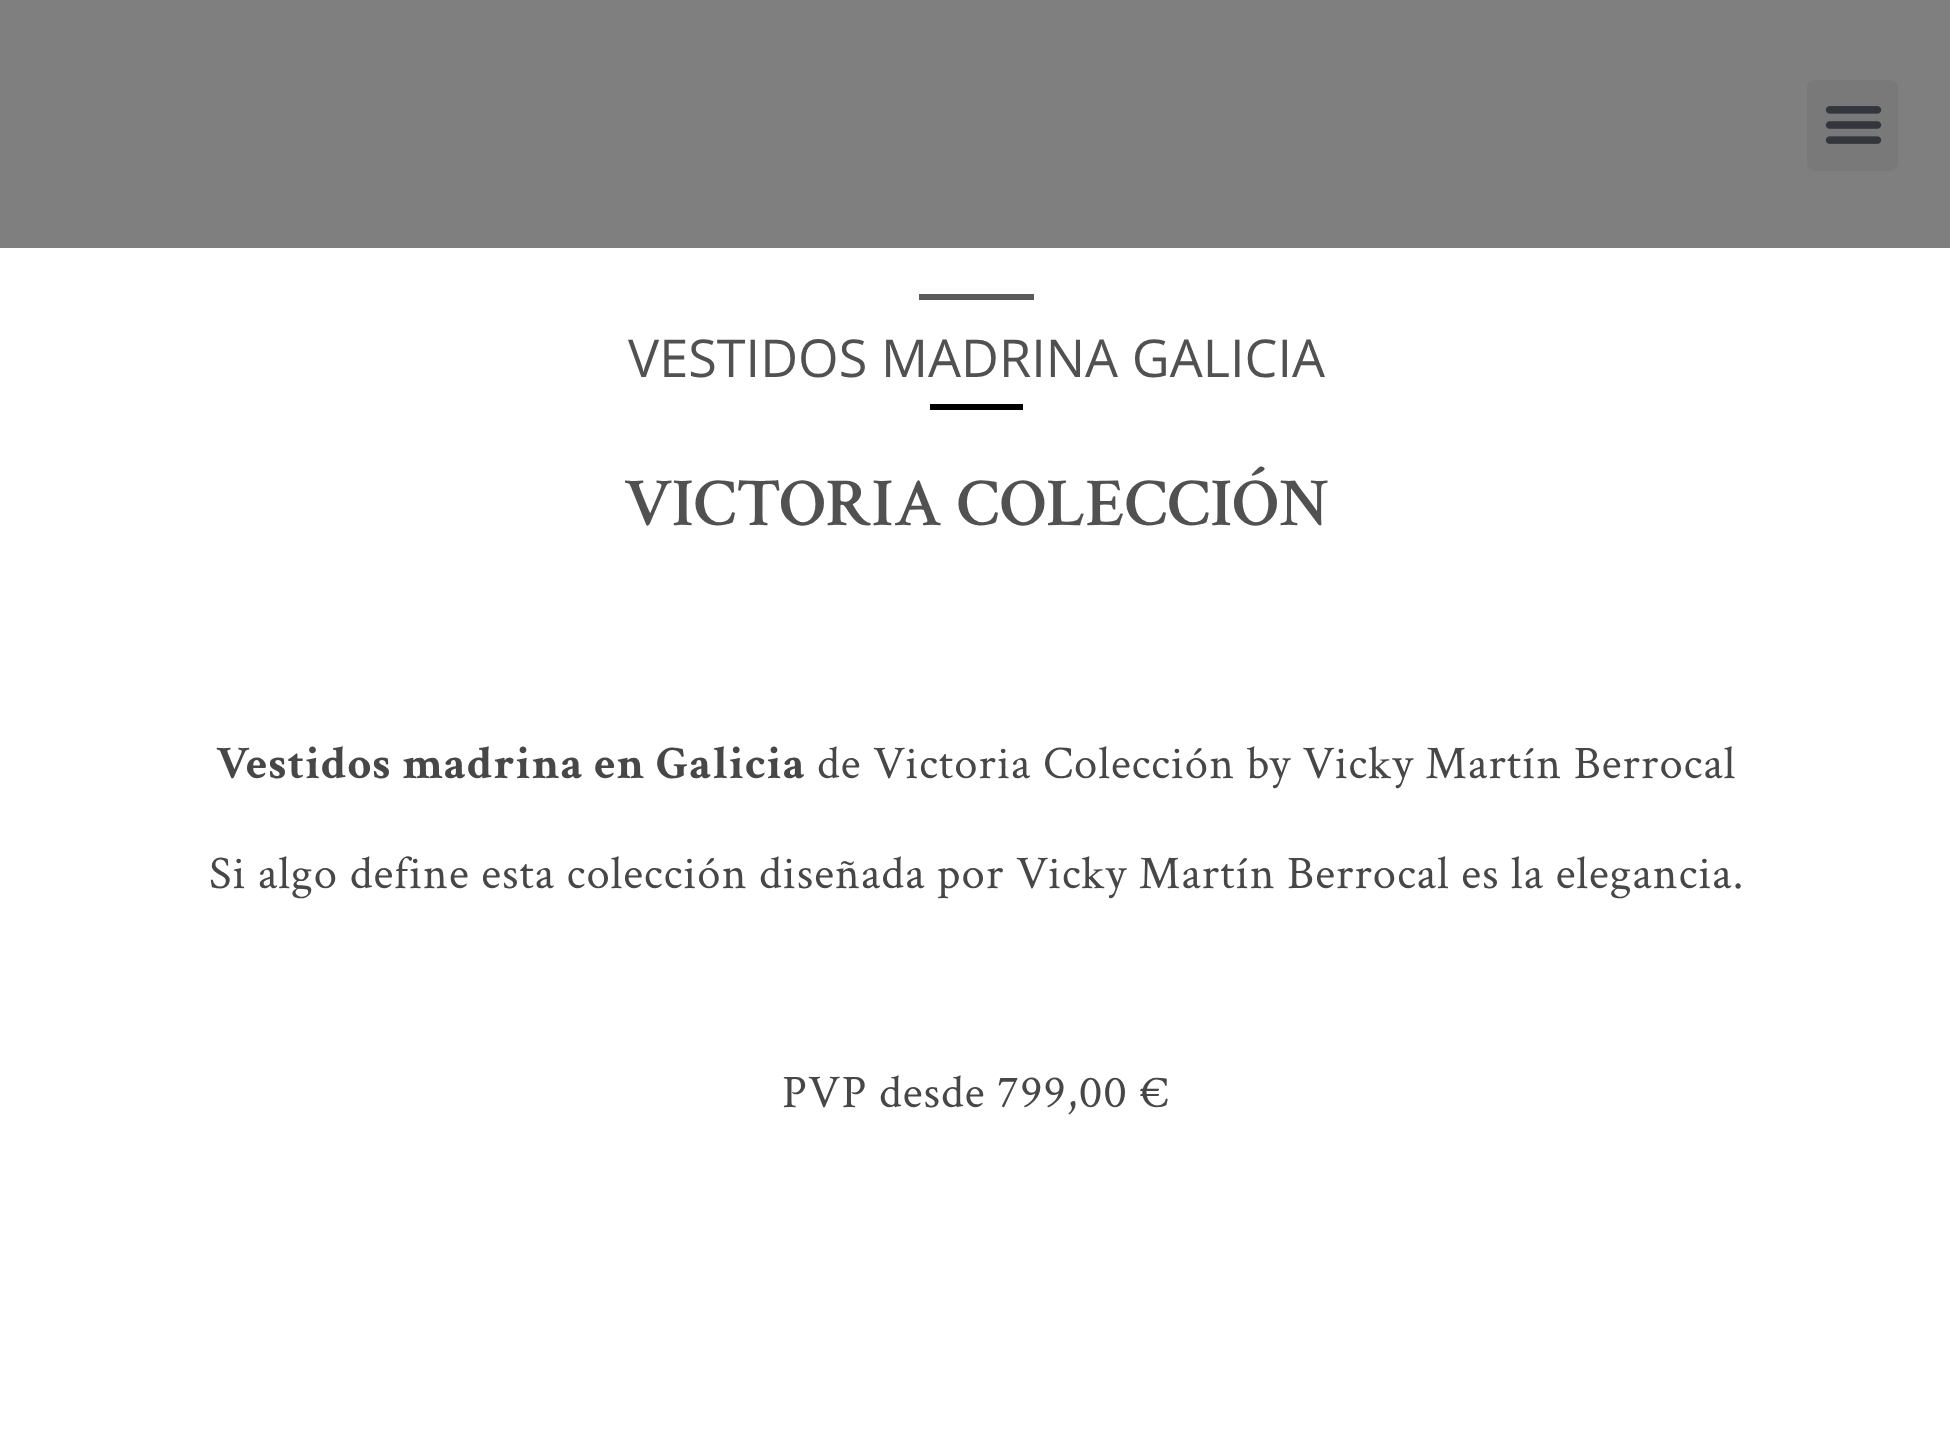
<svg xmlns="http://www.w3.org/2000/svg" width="1950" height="1454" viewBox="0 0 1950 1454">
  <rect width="100%" height="100%" fill="#fff"/>
  <path d="M0 0h1950v248H0z" fill="#7f7f7f"/>
  <rect x="1807" y="80" width="91" height="91" rx="8" fill="#797979"/>
  <image x="1825" y="106" width="57" height="38" href="img/1.png"/>
  <path d="M919 294h115v6H919z" fill="#5b5b5b"/>
  <path d="M930 404h93v6H930z" fill="#000"/>
  <text x="628" y="377" font-family="Open Sans" font-size="52.25" fill="#515151">VESTIDOS MADRINA GALICIA</text>
  <text x="624" y="525" font-family="Crimson Text" font-size="68.75" font-weight="600" fill="#515151">VICTORIA COLECCIÓN</text>
  <text x="216" y="778" font-family="Crimson Text" font-size="46.75" font-weight="bold" letter-spacing="1.1" fill="#474747">Vestidos madrina en Galicia</text>
  <g font-family="Crimson Text" font-size="46.75" letter-spacing="1.1" fill="#474747">
    <text x="817" y="778">de Victoria Colección by Vicky Martín Berrocal</text>
    <text x="209" y="888">Si algo define esta colección diseñada por Vicky Martín Berrocal es la elegancia.</text>
    <text x="782" y="1107">PVP desde 799,00 €</text>
  </g>
</svg>
